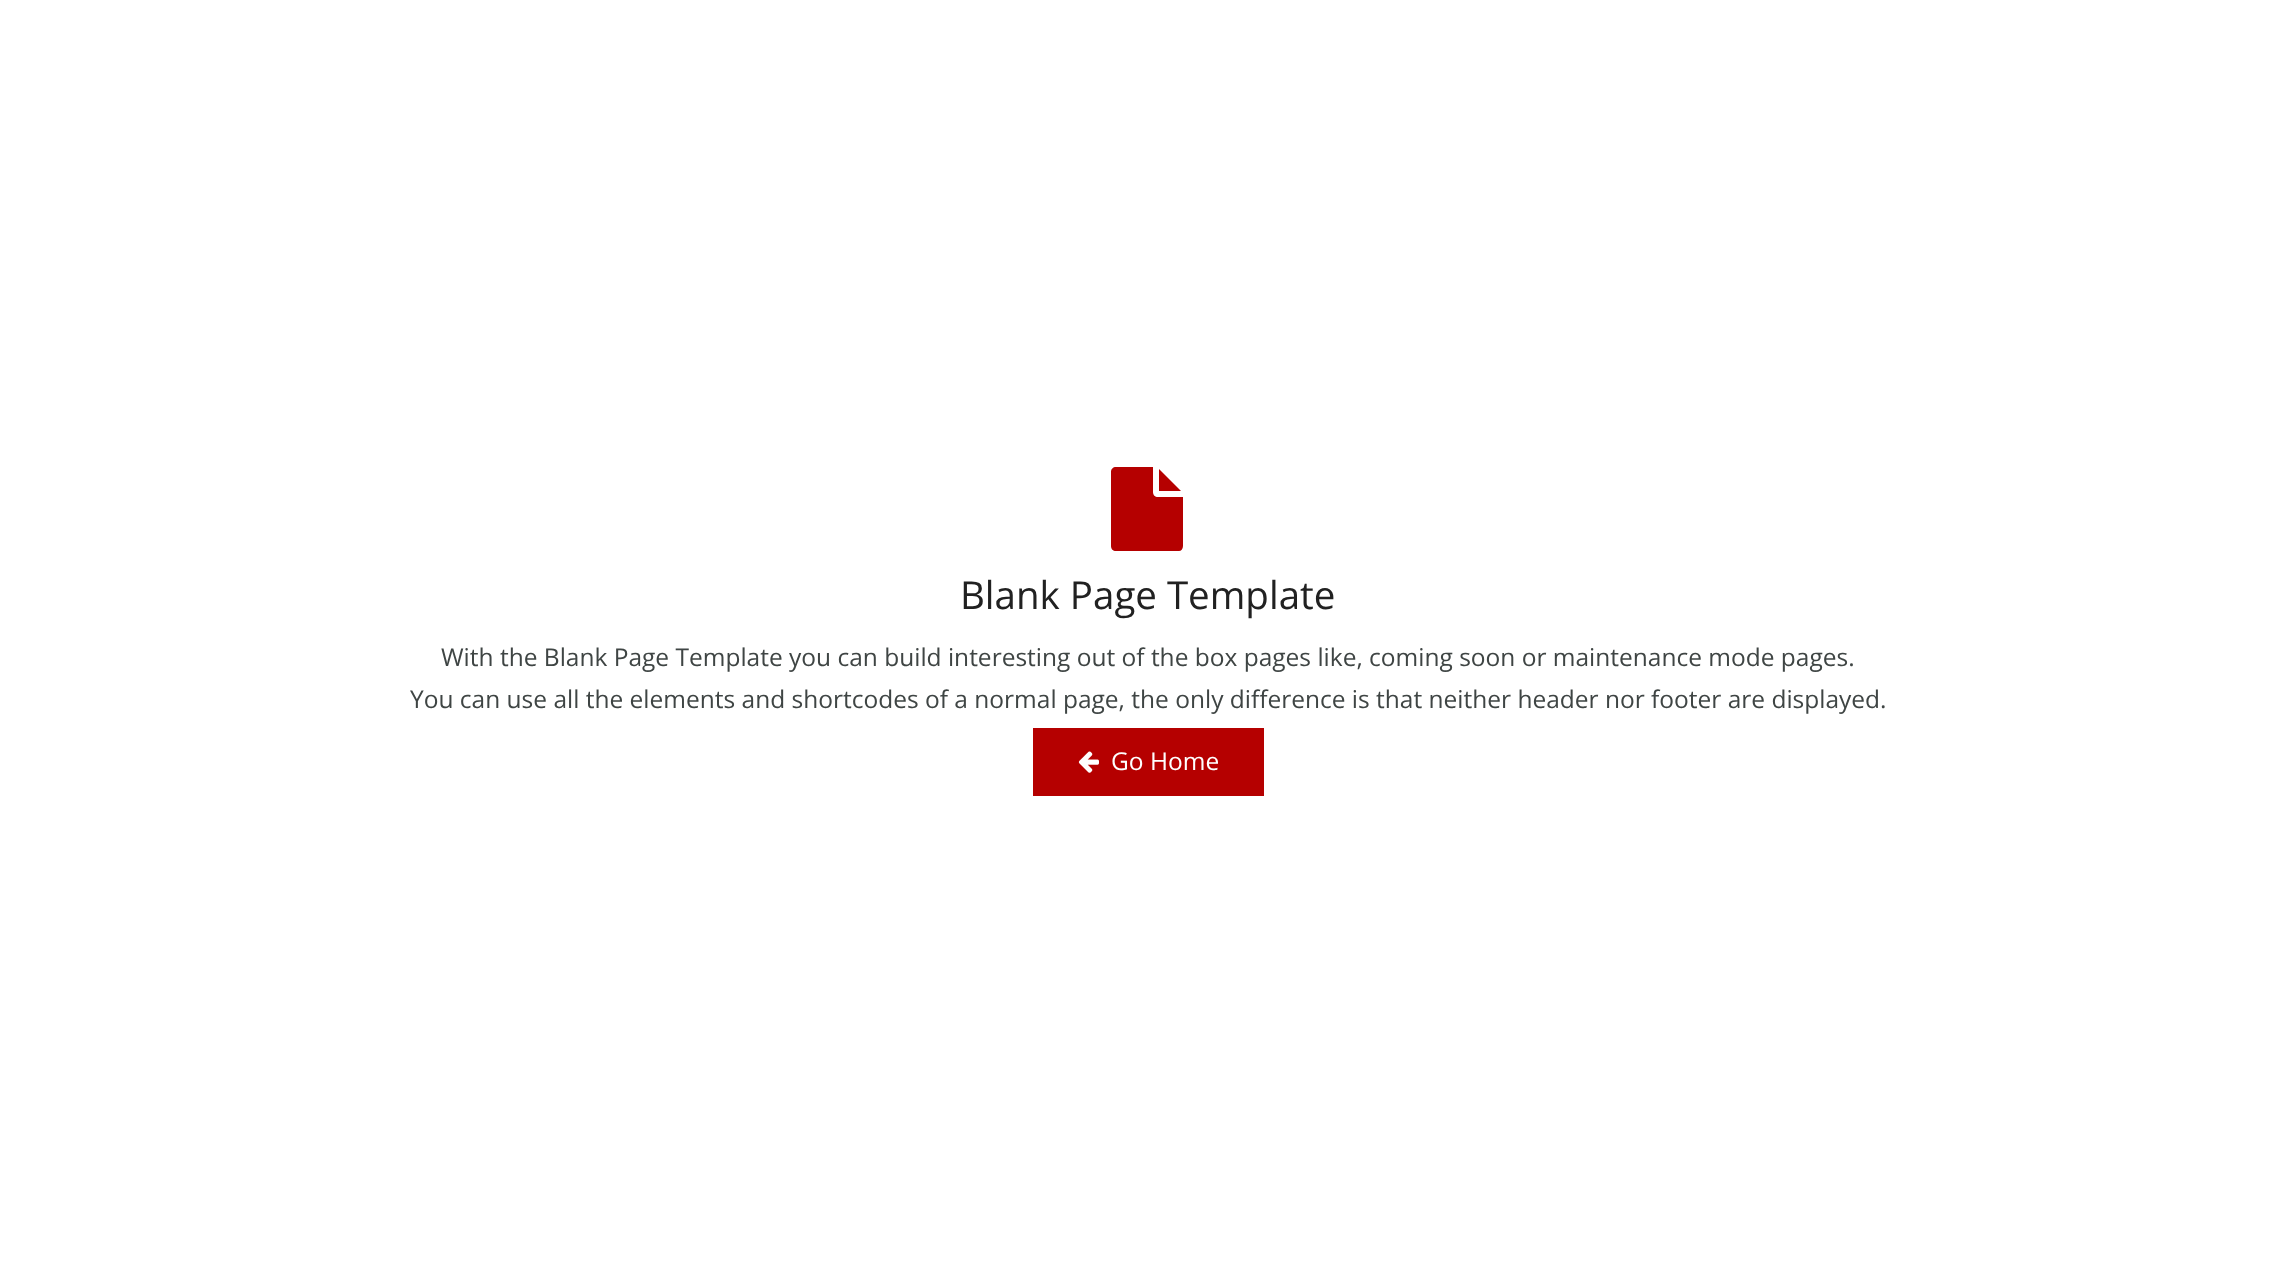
<svg xmlns="http://www.w3.org/2000/svg" width="2296" height="1269" viewBox="0 0 2296 1269">
  <rect width="100%" height="100%" fill="#fff"/>
  <path d="M1159 491H1181L1159 469ZM1153 492V467H1116C1113 467 1111 469 1111 472V546C1111 549 1113 551 1116 551H1179C1181 551 1183 549 1183 546V497H1158C1155 497 1153 495 1153 492Z" fill="#b50000"/>
  <path d="M1033 728h231v68H1033z" fill="#b50000"/>
  <image x="1078" y="751" width="21" height="22" href="img/1.png"/>
  <text x="960" y="609" font-family="Open Sans" font-size="38.5" fill="#212121">Blank Page Template</text>
  <g font-family="Open Sans" font-size="24.5" fill="#3f4544">
    <text x="441" y="666">With the Blank Page Template you can build interesting out of the box pages like, coming soon or maintenance mode pages.</text>
    <text x="410" y="708">You can use all the elements and shortcodes of a normal page, the only difference is that neither header nor footer are displayed.</text>
  </g>
  <text x="1111" y="770" font-family="Open Sans" font-size="24.5" fill="#fff">Go Home</text>
</svg>
